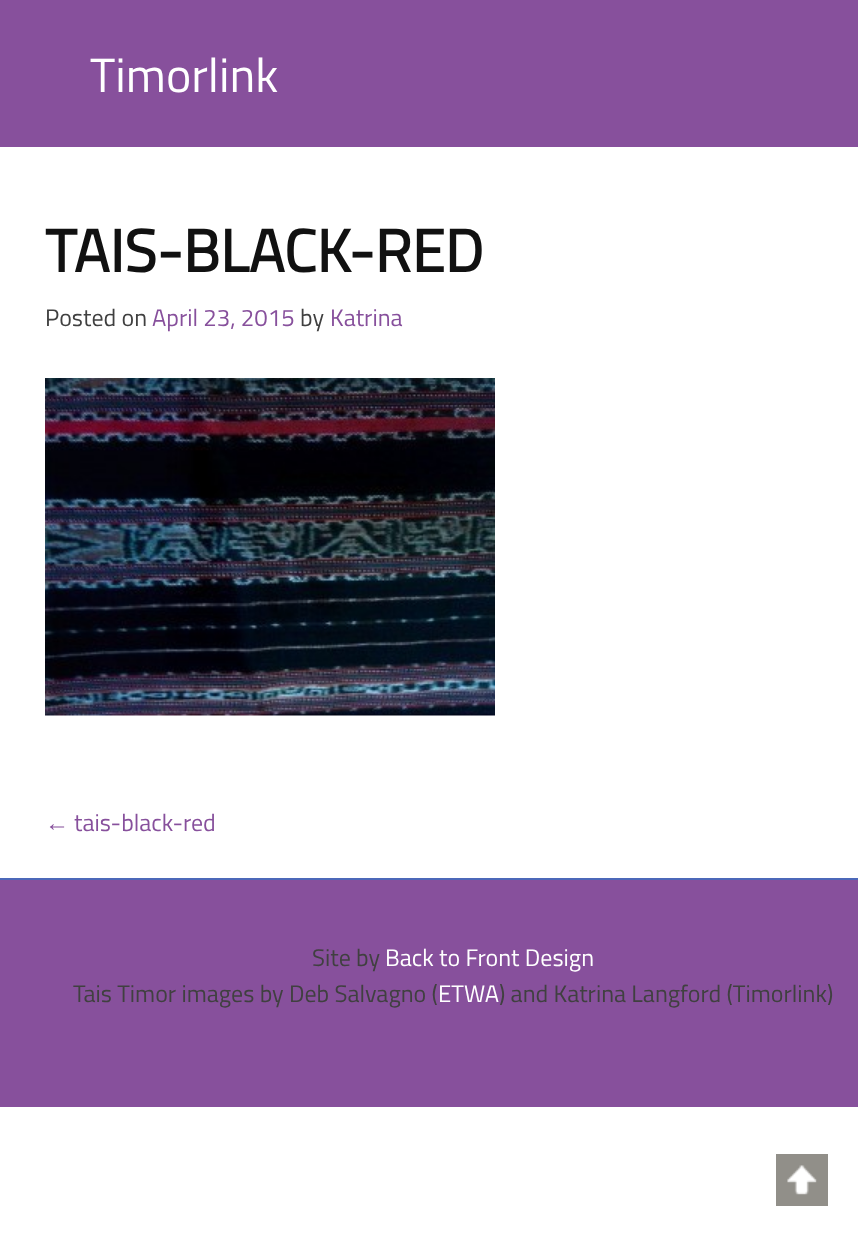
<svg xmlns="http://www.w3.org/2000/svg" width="858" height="1235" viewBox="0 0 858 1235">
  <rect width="100%" height="100%" fill="#fff"/>
  <path d="M0 0h858v147H0z" fill="#87509c"/>
  <image x="45" y="378" width="450" height="338" href="img/1.png"/>
  <path d="M0 880h858v227H0z" fill="#87509c"/>
  <path d="M0 878h858v2H0z" fill="#4c68b9"/>
  <path d="M776 1154h52v52H776z" fill="#918f89"/>
  <image x="787" y="1165" width="30" height="30" href="img/2.png"/>
  <text x="90" y="92" font-family="Titillium Web" font-size="48" fill="#fff">Timorlink</text>
  <text x="45" y="272" font-family="Titillium Web" font-size="60" font-weight="bold" fill="#111">TAIS-BLACK-RED</text>
  <text x="45" y="326" font-family="Titillium Web" font-size="24" fill="#404040">Posted on</text>
  <text x="152" y="326" font-family="Titillium Web" font-size="24" fill="#87509c">April 23, 2015</text>
  <text x="300" y="326" font-family="Titillium Web" font-size="24" fill="#404040">by</text>
  <text x="330" y="326" font-family="Titillium Web" font-size="24" fill="#87509c">Katrina</text>
  <text x="45" y="831" font-family="Liberation Sans" font-size="24" fill="#87509c">←</text>
  <text x="74" y="831" font-family="Titillium Web" font-size="24" fill="#87509c">tais-black-red</text>
  <text x="312" y="966" font-family="Titillium Web" font-size="24" fill="#404040">Site by</text>
  <text x="385" y="966" font-family="Titillium Web" font-size="24" fill="#fff">Back to Front Design</text>
  <text x="73" y="1002" font-family="Titillium Web" font-size="24" fill="#404040">Tais Timor images by Deb Salvagno (</text>
  <text x="438" y="1002" font-family="Titillium Web" font-size="24" fill="#fff">ETWA</text>
  <text x="499" y="1002" font-family="Titillium Web" font-size="24" fill="#404040">) and Katrina Langford (Timorlink)</text>
</svg>
